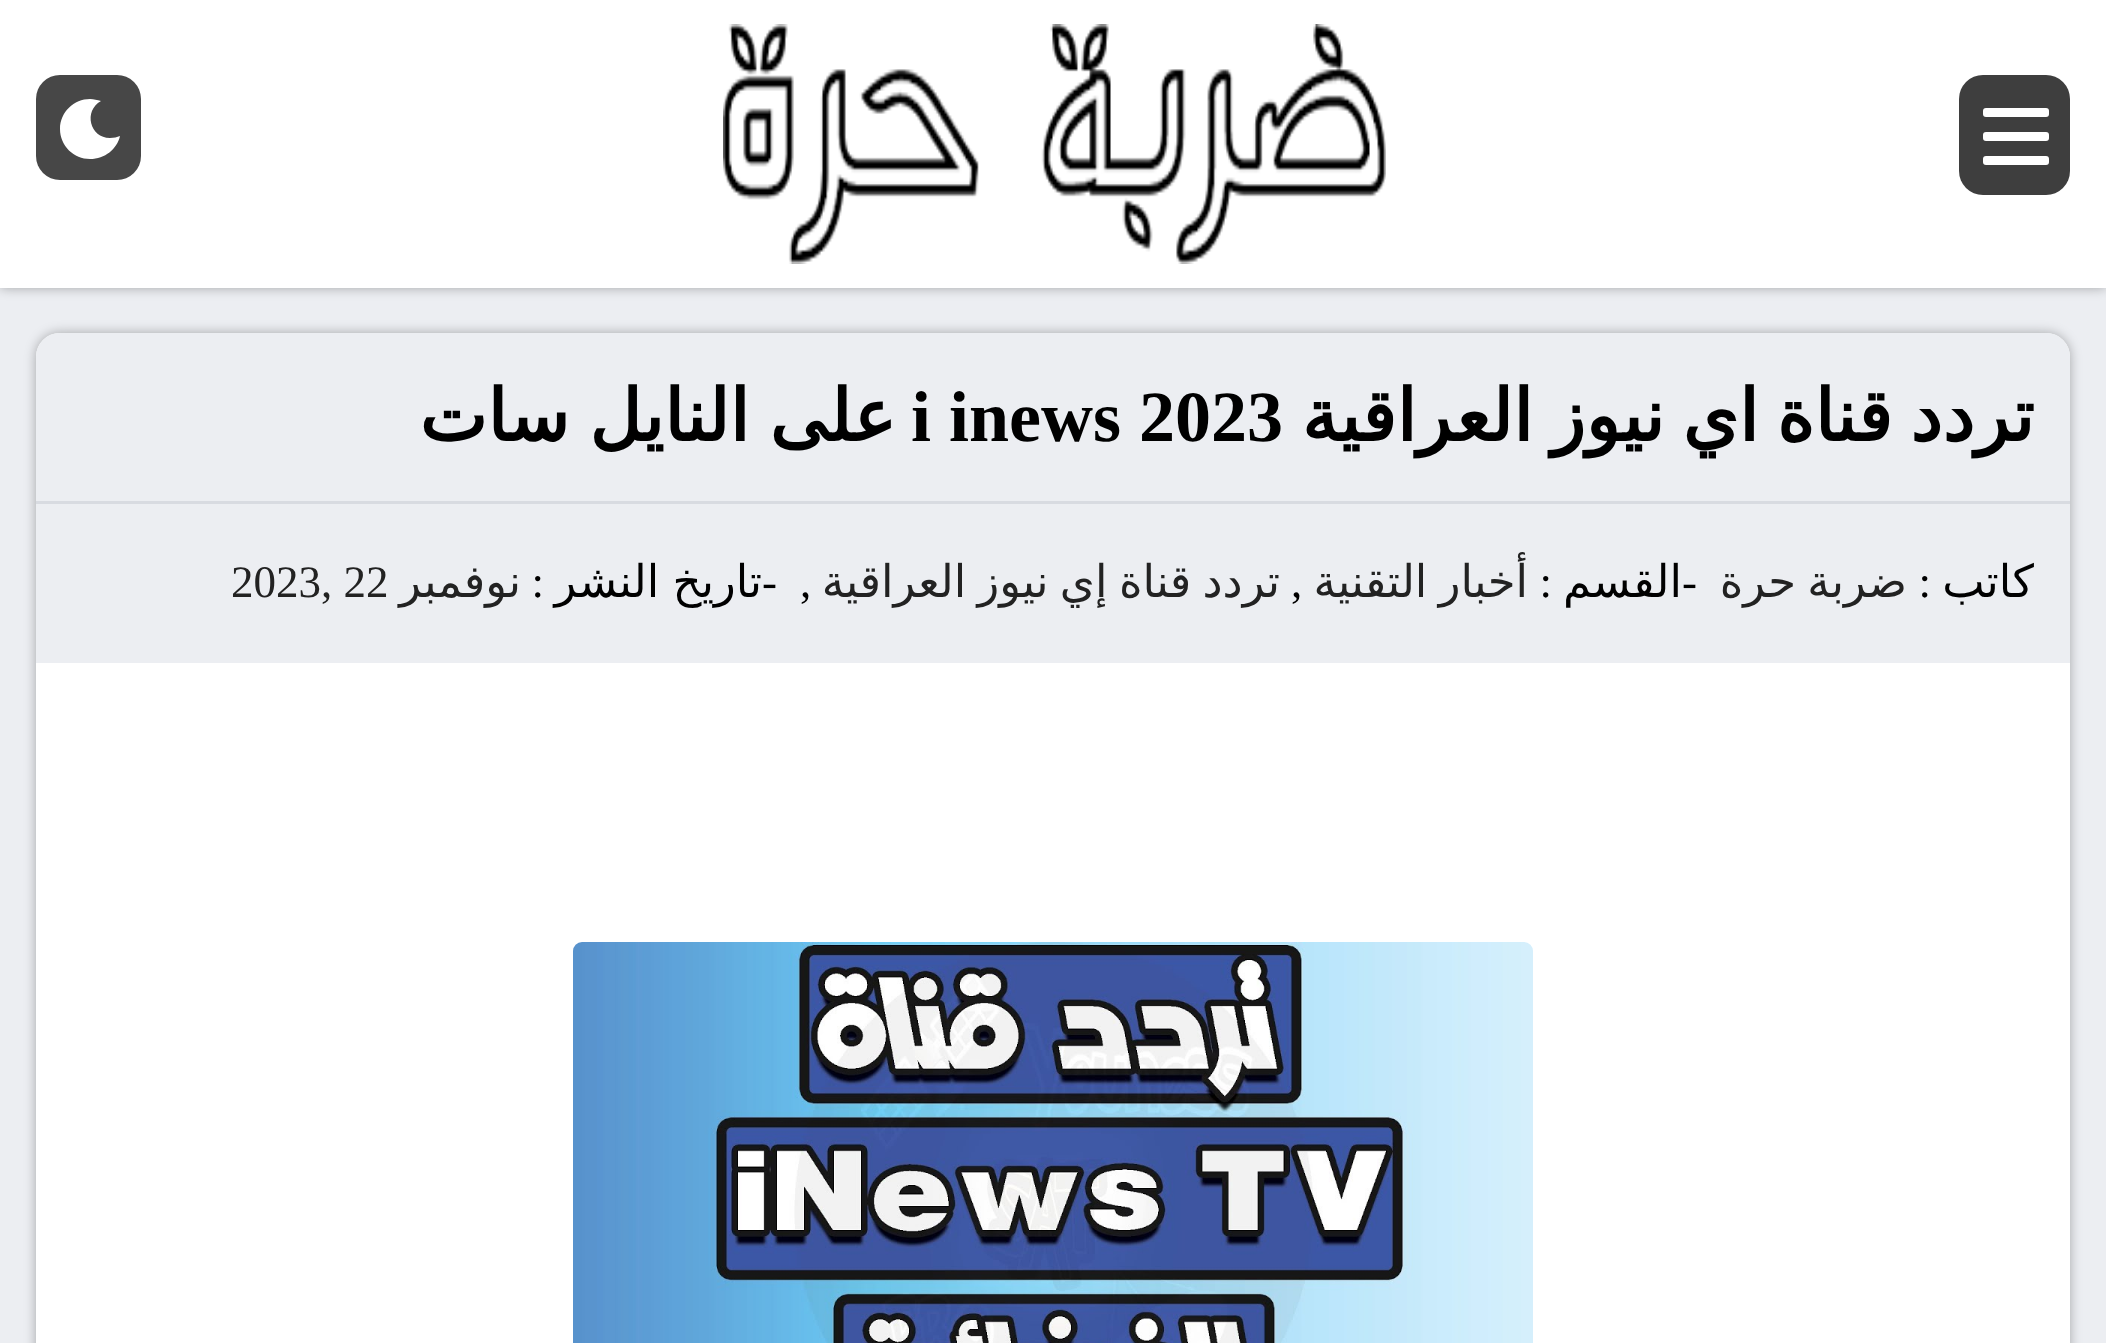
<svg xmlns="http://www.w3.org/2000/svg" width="2106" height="1343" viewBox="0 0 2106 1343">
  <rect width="100%" height="100%" fill="#eceef2"/>
  <path d="M0 0h2106v288H0z" fill="#0000004d" filter="blur(6px)"/>
  <path d="M0 0h2106v288H0z" fill="#fff"/>
  <image x="723" y="24" width="663" height="240" href="img/1.png"/>
  <rect x="1959" y="75" width="111" height="120" rx="24" fill="#3e3e3e"/>
  <rect x="1983" y="108" width="66" height="9" rx="3" fill="#fff"/>
  <rect x="1983" y="132" width="66" height="9" rx="3" fill="#fff"/>
  <rect x="1983" y="156" width="66" height="9" rx="3" fill="#fff"/>
  <rect x="36" y="75" width="105" height="105" rx="24" fill="#474747"/>
  <path d="M110 138C90 138 83 111 101 101C97 100 94 99 90 99C74 99 60 112 60 129C60 146 74 159 90 159C105 159 117 149 120 136C117 137 114 138 110 138Z" fill="#fff"/>
  <rect x="36" y="333" width="2034" height="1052" rx="24" fill="#0000004d" filter="blur(6px)"/>
  <rect x="36" y="333" width="2034" height="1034" rx="24" fill="#fff"/>
  <path d="M60 333H2046C2059.5 333 2070 343.5 2070 357V663H36V357C36 343.5 46.5 333 60 333Z" fill="#eceef2"/>
  <path d="M36 501h2034v3H36z" fill="#d8dbe1"/>
  <image x="573" y="942" width="960" height="401" href="img/2.png"/>
  <text x="2034" y="441" word-spacing="-5" font-family="DejaVu Sans" font-size="72" font-weight="bold" direction="rtl" fill="#000">تردد قناة اي نيوز العراقية</text>
  <text x="911" y="441" font-family="Liberation Serif" font-size="72" font-weight="bold" fill="#000">i inews 2023</text>
  <text x="896" y="441" word-spacing="-3" font-family="DejaVu Sans" font-size="72" font-weight="bold" direction="rtl" fill="#000">على النايل سات</text>
  <text x="2034" y="597" font-family="DejaVu Sans" font-size="45" direction="rtl" fill="#000">كاتب</text>
  <text x="1931" y="597" font-family="Liberation Serif" font-size="45" direction="rtl" fill="#000">:</text>
  <text x="1907" y="597" word-spacing="-3" font-family="DejaVu Sans" font-size="45" direction="rtl" fill="#222">ضربة حرة</text>
  <text x="1682" y="597" font-family="Liberation Serif" font-size="45" fill="#000">-</text>
  <text x="1682" y="597" font-family="DejaVu Sans" font-size="45" direction="rtl" fill="#000">القسم</text>
  <text x="1552" y="597" font-family="Liberation Serif" font-size="45" direction="rtl" fill="#000">:</text>
  <g font-family="DejaVu Sans" font-size="45" direction="rtl" fill="#222">
    <text x="1528" y="597" word-spacing="-3">أخبار التقنية</text>
    <text x="1280" y="597" word-spacing="-3">تردد قناة إي نيوز العراقية</text>
  </g>
  <text x="762" y="597" font-family="Liberation Serif" font-size="45" fill="#000">-</text>
  <text x="762" y="597" word-spacing="-1" font-family="DejaVu Sans" font-size="45" direction="rtl" fill="#000">تاريخ النشر</text>
  <text x="544" y="597" font-family="Liberation Serif" font-size="45" direction="rtl" fill="#000">:</text>
  <text x="521" y="597" font-family="DejaVu Sans" font-size="45" direction="rtl" fill="#222">نوفمبر</text>
  <text x="231" y="597" font-family="Liberation Serif" font-size="45" fill="#222">2023, 22</text>
  <g font-family="Liberation Serif" font-size="45" fill="#000">
    <text x="1291" y="597">,</text>
    <text x="800" y="597">,</text>
  </g>
</svg>
